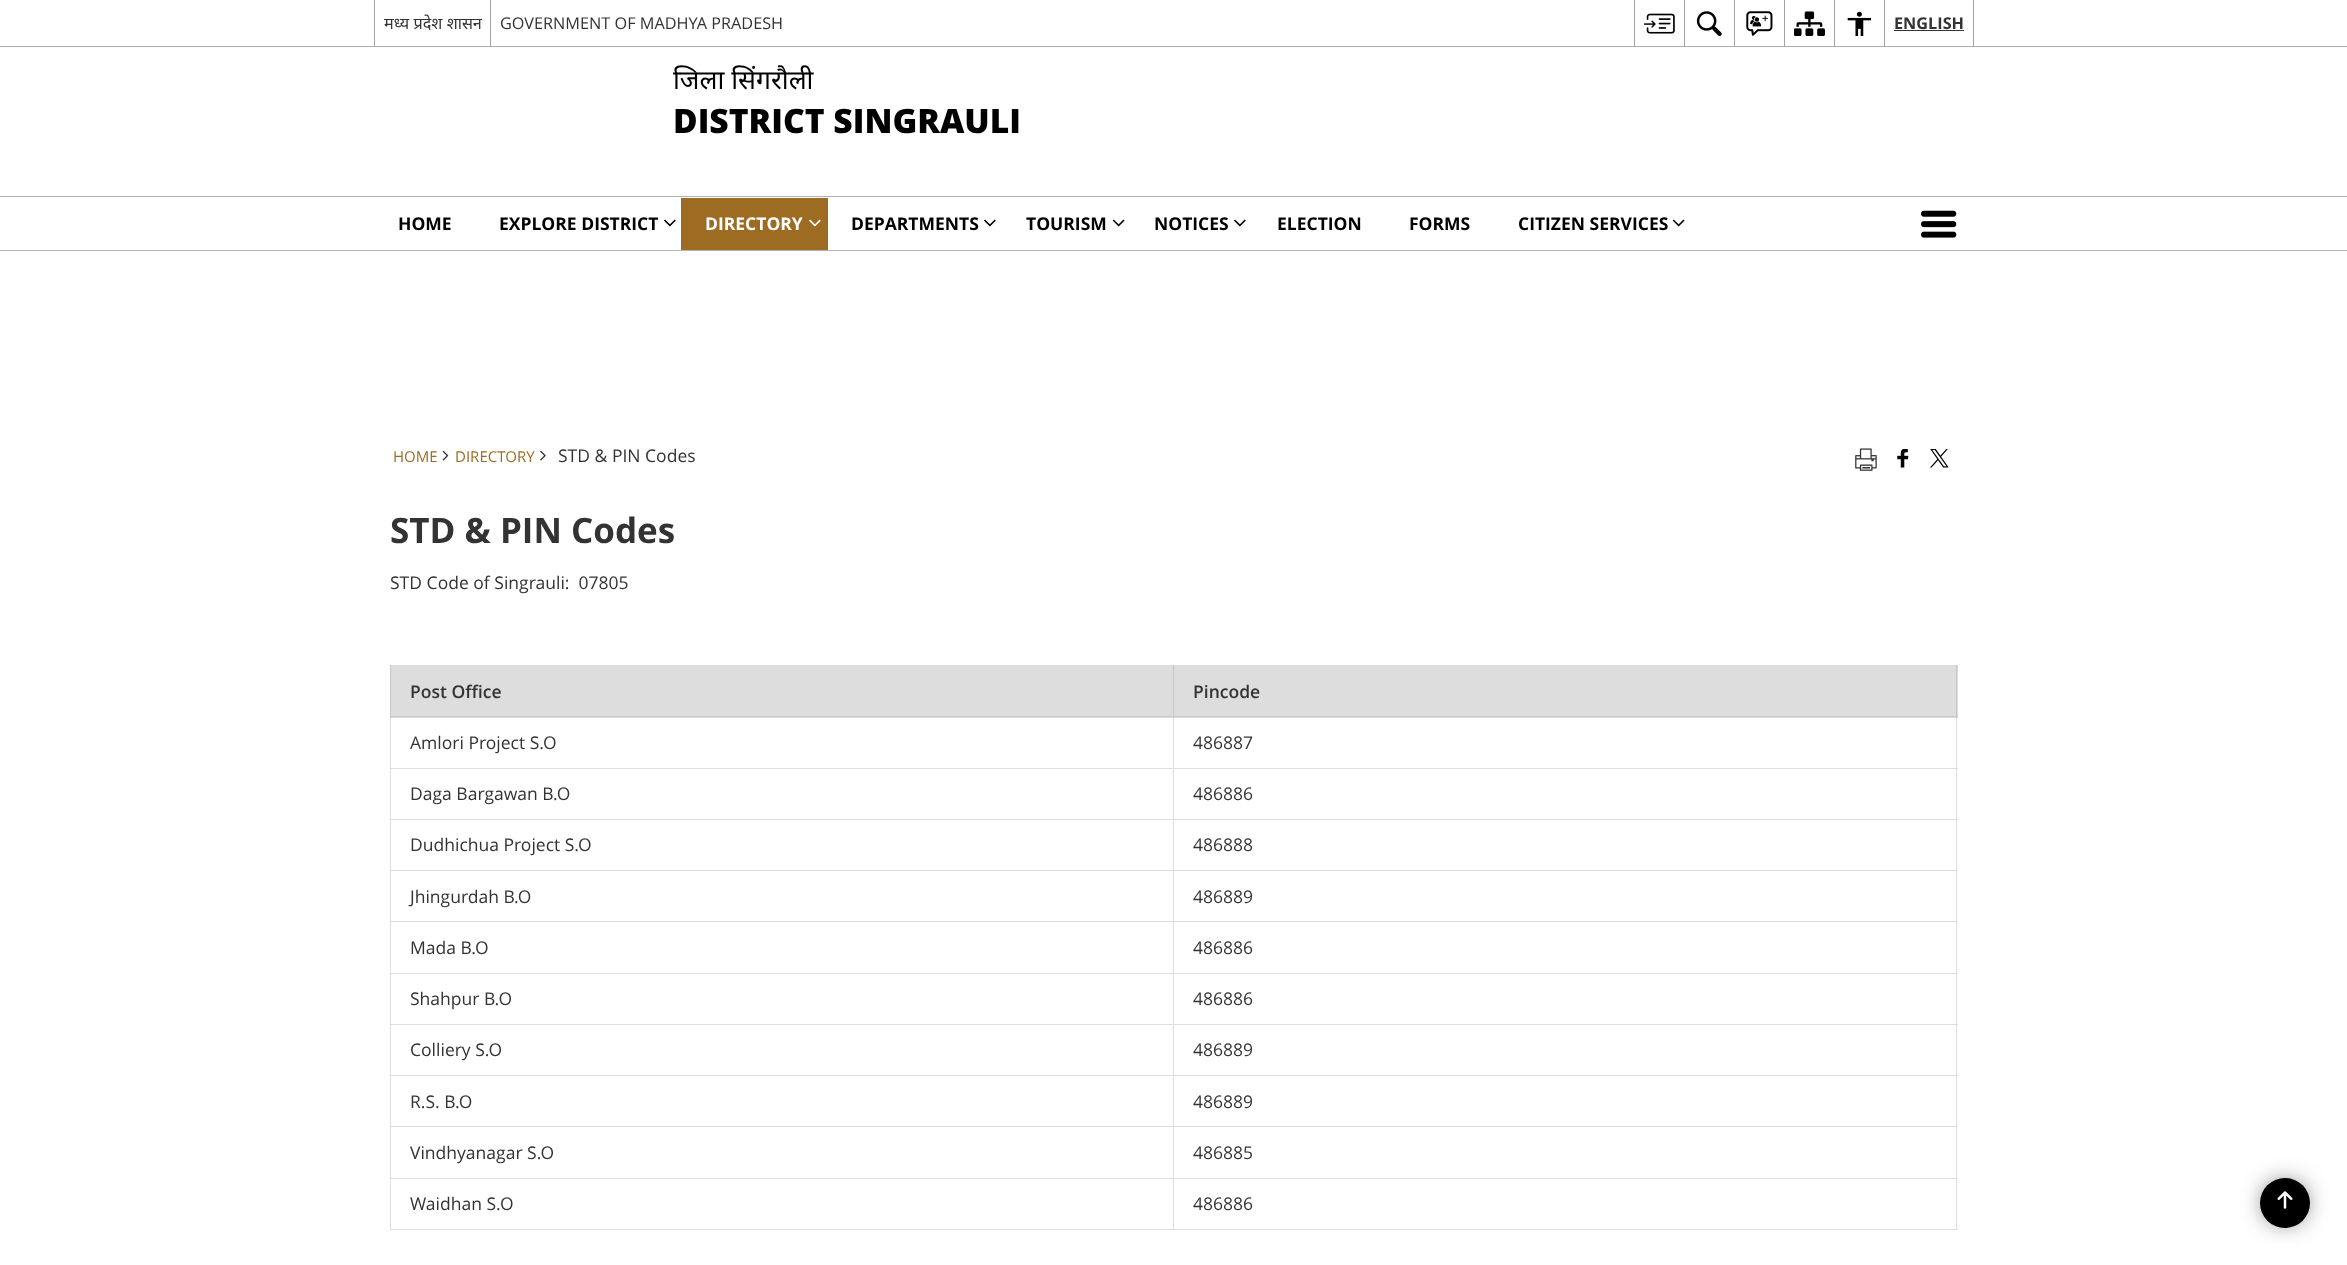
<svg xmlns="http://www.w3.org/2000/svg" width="2347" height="1265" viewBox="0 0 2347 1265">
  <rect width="100%" height="100%" fill="#fff"/>
  <path d="M0 46h2347v1H0z" fill="#ababab"/>
  <path d="M374 0h1v46H374z" fill="#a3a3a3"/>
  <path d="M490 0h1v46H490z" fill="#a3a3a3"/>
  <path d="M1634 0h1v46H1634z" fill="#a3a3a3"/>
  <image x="1644" y="13" width="31" height="21" href="img/1.png"/>
  <path d="M1684 0h1v46H1684z" fill="#a3a3a3"/>
  <image x="1696" y="11" width="26" height="25" href="img/2.png"/>
  <path d="M1734 0h1v46H1734z" fill="#a3a3a3"/>
  <image x="1746" y="11" width="27" height="25" href="img/3.png"/>
  <path d="M1784 0h1v46H1784z" fill="#a3a3a3"/>
  <image x="1794" y="11" width="31" height="25" href="img/4.png"/>
  <path d="M1834 0h1v46H1834z" fill="#a3a3a3"/>
  <image x="1847" y="11" width="25" height="25" href="img/5.png"/>
  <path d="M1973 0h1v46H1973z" fill="#a3a3a3"/>
  <path d="M1884 0h1v46H1884z" fill="#a3a3a3"/>
  <path d="M1894 30h70v1H1894z" fill="#333"/>
  <path d="M0 196h2347v1H0z" fill="#b3b3b3"/>
  <path d="M0 250h2347v1H0z" fill="#b3b3b3"/>
  <image x="664" y="219" width="12" height="8" href="img/6.png"/>
  <path d="M681 198h147v52H681z" fill="#9e6b22"/>
  <image x="809" y="219" width="12" height="8" href="img/7.png"/>
  <image x="984" y="219" width="12" height="8" href="img/6.png"/>
  <image x="1112" y="219" width="13" height="8" href="img/8.png"/>
  <image x="1234" y="219" width="12" height="8" href="img/6.png"/>
  <image x="1672" y="219" width="13" height="8" href="img/8.png"/>
  <image x="1921" y="210" width="36" height="28" href="img/9.png"/>
  <image x="442" y="450" width="7" height="11" href="img/10.png"/>
  <image x="540" y="450" width="6" height="11" href="img/11.png"/>
  <image x="1855" y="448" width="22" height="23" href="img/12.png"/>
  <image x="1897" y="449" width="12" height="19" href="img/13.png"/>
  <image x="1930" y="449" width="19" height="19" href="img/14.png"/>
  <path d="M390 665h1568v1H390z" fill="#ddd"/>
  <path d="M1956 718h1v512H1956z" fill="#ddd"/>
  <path d="M390 1229h1568v1H390z" fill="#ddd"/>
  <path d="M390 718h1v512H390z" fill="#ddd"/>
  <path d="M391 666h782v52H391z" fill="#ddd"/>
  <path d="M1174 666h784v52H1174z" fill="#ddd"/>
  <path d="M1956 665h1v53H1956z" fill="#c7c7c7"/>
  <path d="M390 768h1568v1H390z" fill="#ddd"/>
  <path d="M390 819h1568v1H390z" fill="#ddd"/>
  <path d="M390 870h1568v1H390z" fill="#ddd"/>
  <path d="M390 921h1568v1H390z" fill="#ddd"/>
  <path d="M390 973h1568v1H390z" fill="#ddd"/>
  <path d="M390 1024h1568v1H390z" fill="#ddd"/>
  <path d="M390 1075h1568v1H390z" fill="#ddd"/>
  <path d="M390 1126h1568v1H390z" fill="#ddd"/>
  <path d="M390 1178h1568v1H390z" fill="#ddd"/>
  <path d="M1173 1178h1v52H1173z" fill="#ddd"/>
  <path d="M1173 1126h1v53H1173z" fill="#ddd"/>
  <path d="M1173 1075h1v53H1173z" fill="#ddd"/>
  <path d="M1173 1024h1v52H1173z" fill="#ddd"/>
  <path d="M1173 973h1v52H1173z" fill="#ddd"/>
  <path d="M1173 921h1v53H1173z" fill="#ddd"/>
  <path d="M1173 870h1v53H1173z" fill="#ddd"/>
  <path d="M1173 819h1v52H1173z" fill="#ddd"/>
  <path d="M1173 716h1v104H1173z" fill="#ddd"/>
  <path d="M1173 716h785v1H1173z" fill="#c7c7c7"/>
  <path d="M1173 665h1v53H1173z" fill="#c7c7c7"/>
  <path d="M390 716h784v1H390z" fill="#c7c7c7"/>
  <path d="M390 665h1v53H390z" fill="#c7c7c7"/>
  <rect x="2266" y="1184" width="38" height="37" rx="18.5" fill="#3c3c3c" filter="blur(12px)"/>
  <circle cx="2285" cy="1203" r="25" fill="#000"/>
  <image x="2277" y="1191" width="16" height="18" href="img/15.png"/>
  <text x="384" y="29" font-family="Noto Sans" font-size="16.25" fill="#333">मध्य प्रदेश शासन</text>
  <text x="500" y="29" font-family="Open Sans" font-size="16.25" fill="#333">GOVERNMENT OF MADHYA PRADESH</text>
  <text x="1894" y="29" font-family="Open Sans" font-size="16.25" font-weight="bold" fill="#333">ENGLISH</text>
  <text x="673" y="89" font-family="Noto Sans" font-size="26.5" fill="#000">जिला सिंगरौली</text>
  <text x="673" y="133" font-family="Open Sans" font-size="33.6" font-weight="800" fill="#000">DISTRICT SINGRAULI</text>
  <g font-family="Open Sans" font-size="17.5" font-weight="bold" fill="#000">
    <text x="398" y="230">HOME</text>
    <text x="499" y="230">EXPLORE DISTRICT</text>
  </g>
  <text x="705" y="230" font-family="Open Sans" font-size="17.5" font-weight="bold" fill="#fff">DIRECTORY</text>
  <g font-family="Open Sans" font-size="17.5" font-weight="bold" fill="#000">
    <text x="851" y="230">DEPARTMENTS</text>
    <text x="1026" y="230">TOURISM</text>
    <text x="1154" y="230">NOTICES</text>
    <text x="1277" y="230">ELECTION</text>
    <text x="1409" y="230">FORMS</text>
    <text x="1518" y="230">CITIZEN SERVICES</text>
  </g>
  <g font-family="Open Sans" font-size="15" fill="#9e6b22">
    <text x="393" y="462">HOME</text>
    <text x="455" y="462">DIRECTORY</text>
  </g>
  <text x="558" y="462" font-family="Open Sans" font-size="17.5" fill="#333">STD &amp; PIN Codes</text>
  <text x="390" y="543" font-family="Open Sans" font-size="35" font-weight="bold" fill="#333">STD &amp; PIN Codes</text>
  <text x="390" y="589" font-family="Open Sans" font-size="17.5" fill="#333" xml:space="preserve">STD Code of Singrauli:  07805</text>
  <g font-family="Open Sans" font-size="17.5" font-weight="600" fill="#333">
    <text x="410" y="698">Post Office</text>
    <text x="1193" y="698">Pincode</text>
  </g>
  <g font-family="Open Sans" font-size="17.5" fill="#333">
    <text x="410" y="749">Amlori Project S.O</text>
    <text x="1193" y="749">486887</text>
    <text x="410" y="800">Daga Bargawan B.O</text>
    <text x="1193" y="800">486886</text>
    <text x="410" y="851">Dudhichua Project S.O</text>
    <text x="1193" y="851">486888</text>
    <text x="410" y="903">Jhingurdah B.O</text>
    <text x="1193" y="903">486889</text>
    <text x="410" y="954">Mada B.O</text>
    <text x="1193" y="954">486886</text>
    <text x="410" y="1005">Shahpur B.O</text>
    <text x="1193" y="1005">486886</text>
    <text x="410" y="1056">Colliery S.O</text>
    <text x="1193" y="1056">486889</text>
    <text x="410" y="1108">R.S. B.O</text>
    <text x="1193" y="1108">486889</text>
    <text x="410" y="1159">Vindhyanagar S.O</text>
    <text x="1193" y="1159">486885</text>
    <text x="410" y="1210">Waidhan S.O</text>
    <text x="1193" y="1210">486886</text>
  </g>
</svg>
